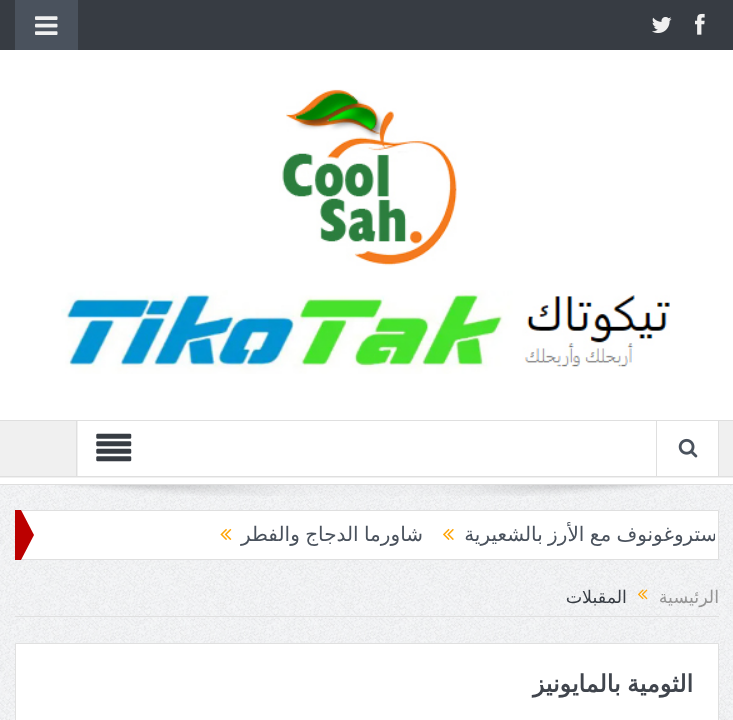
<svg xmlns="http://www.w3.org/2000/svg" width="733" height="720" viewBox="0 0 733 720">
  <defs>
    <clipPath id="clip1"><path d="M35 511h680v48H35z"/></clipPath>
  </defs>
  <rect width="100%" height="100%" fill="#fff"/>
  <image x="0" y="485" width="733" height="235" href="img/1.png"/>
  <path d="M0 0h733v50H0z" fill="#373c43"/>
  <image x="695" y="13" width="10" height="22" href="img/2.png"/>
  <image x="652" y="17" width="20" height="16" href="img/3.png"/>
  <path d="M15 0h63v50H15z" fill="#4a525d"/>
  <image x="35" y="16" width="23" height="19" href="img/4.png"/>
  <image x="279" y="89" width="178" height="177" href="img/5.png"/>
  <image x="61" y="290" width="609" height="84" href="img/6.png"/>
  <path d="M0 420h733v1H0z" fill="#dfdfdf"/>
  <path d="M0 484h733v1H0z" fill="#dfdfdf"/>
  <path d="M0 421h733v57H0z" fill="#f0f0f0"/>
  <path d="M0 476h733v1H0z" fill="#dfdfdf"/>
  <path d="M657 421h61v55H657z" fill="#fff"/>
  <path d="M718 421h1v55H718z" fill="#dfdfdf"/>
  <path d="M656 421h1v55H656z" fill="#dfdfdf"/>
  <image x="678" y="438" width="20" height="20" href="img/7.png"/>
  <path d="M78 421h578v55H78z" fill="#fff"/>
  <path d="M76 421h1v55H76z" fill="#dfdfdf"/>
  <image x="96" y="433" width="36" height="29" href="img/8.png"/>
  <image x="55" y="485" width="625" height="11" href="img/9.png"/>
  <path d="M21.5 510.5h697v49H21.5z" fill="#fff" stroke="#dfdfdf"/>
  <image x="443" y="528" width="11" height="12" href="img/10.png"/>
  <image x="220" y="528" width="12" height="12" href="img/11.png"/>
  <path d="M15 510h6v50H15z" fill="#b00"/>
  <path d="M21 560V510L34 535Z" fill="#b00"/>
  <path d="M15 616h704v1H15z" fill="#e0e0e0"/>
  <image x="638" y="589" width="10" height="11" href="img/12.png"/>
  <path d="M15.5 643.5h703v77H15.5z" fill="#fff" stroke="#e0e0e0"/>
  <g clip-path="url(#clip1)">
    <text x="749" y="541" word-spacing="-1" font-family="DejaVu Sans" font-size="20" direction="rtl" fill="#4a525d">كبة ستروغونوف مع الأرز بالشعيرية</text>
  </g>
  <text x="423" y="541" word-spacing="-1" font-family="DejaVu Sans" font-size="20" direction="rtl" fill="#4a525d">شاورما الدجاج والفطر</text>
  <text x="719" y="603" font-family="DejaVu Sans" font-size="17.5" direction="rtl" fill="#959595">الرئيسية</text>
  <text x="627" y="603" font-family="DejaVu Sans" font-size="17.5" direction="rtl" fill="#373c43">المقبلات</text>
  <text x="693" y="692" word-spacing="-1" font-family="DejaVu Sans" font-size="23.75" font-weight="bold" direction="rtl" fill="#40454d">الثومية بالمايونيز</text>
</svg>
